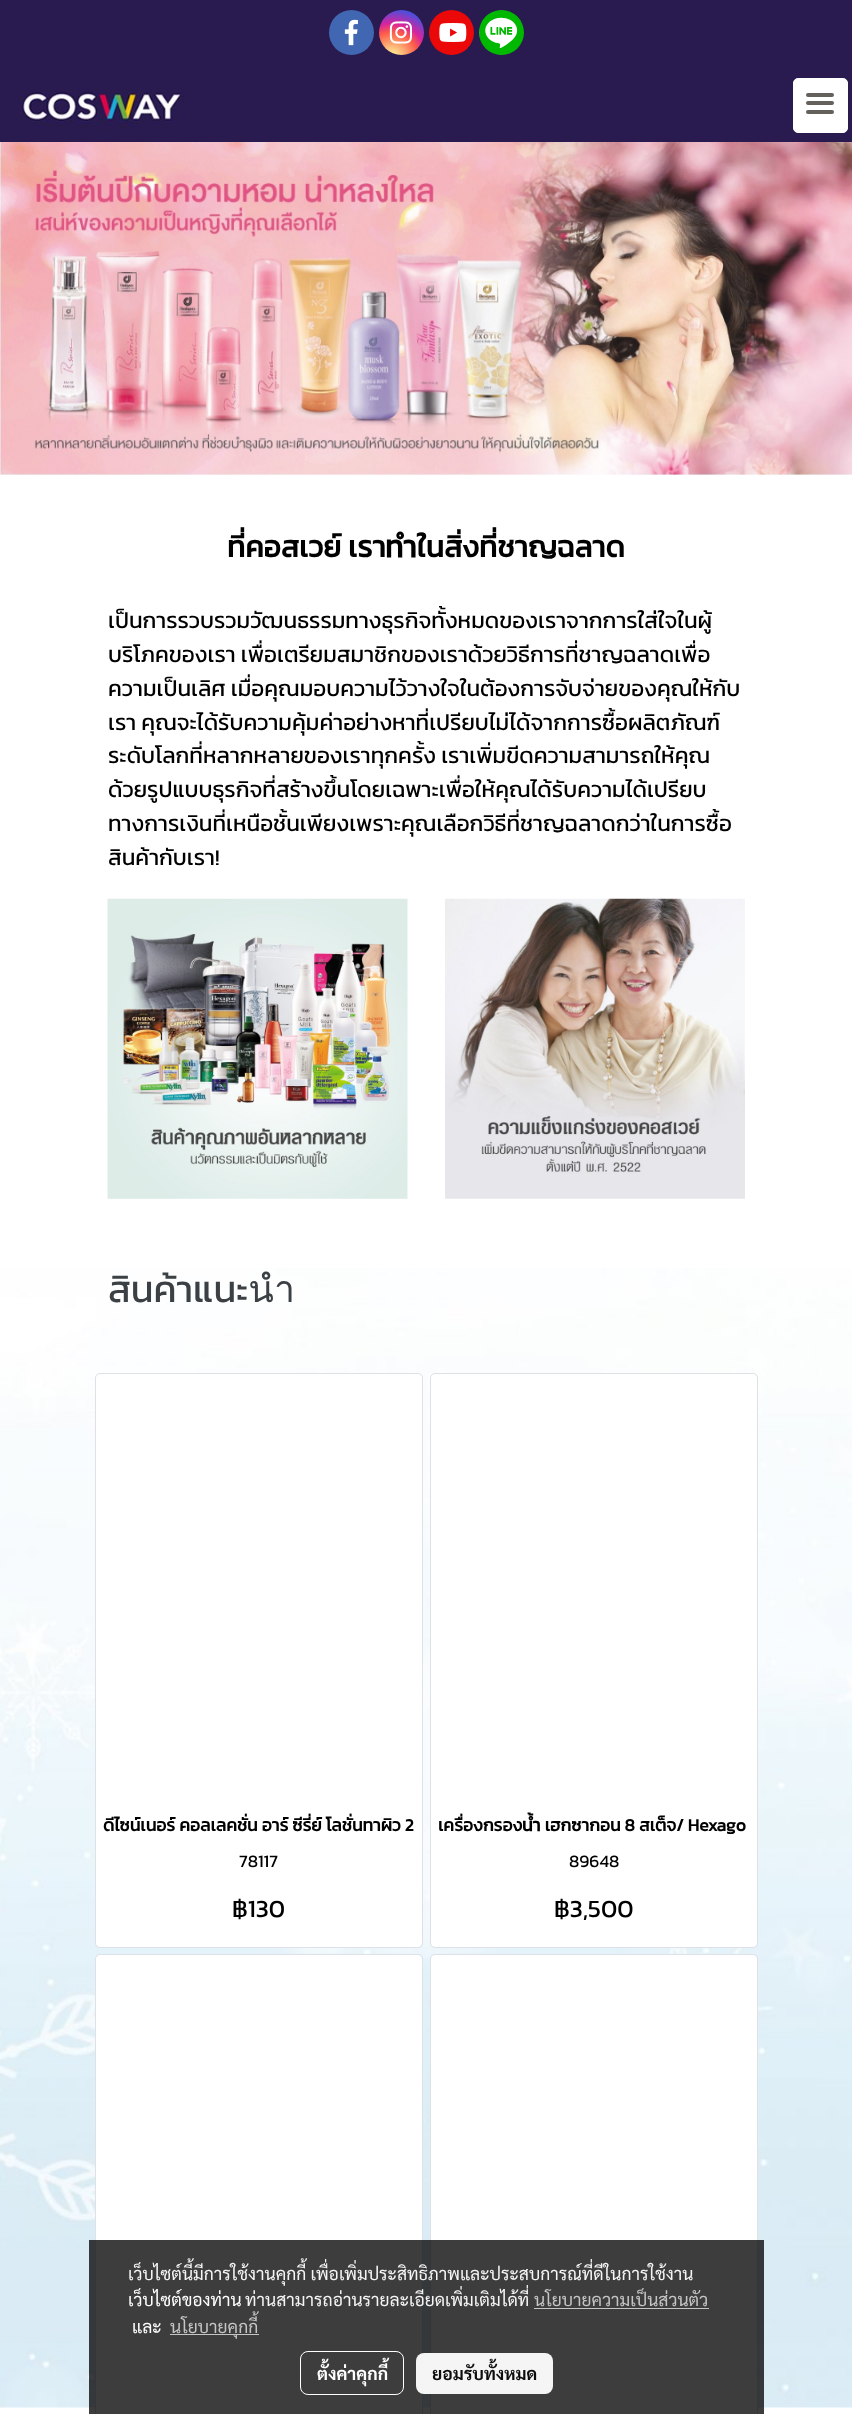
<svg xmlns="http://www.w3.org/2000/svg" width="852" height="2414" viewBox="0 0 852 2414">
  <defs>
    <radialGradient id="g1" gradientUnits="userSpaceOnUse" cx="392" cy="58" r="58"><stop offset="0" stop-color="#fdf497"/><stop offset="0.05" stop-color="#fdf497"/><stop offset="0.45" stop-color="#fd5949"/><stop offset="0.6" stop-color="#d6249f"/><stop offset="0.9" stop-color="#285aeb"/></radialGradient>
    <clipPath id="clip1"><rect x="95" y="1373" width="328" height="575" rx="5"/></clipPath>
    <clipPath id="clip2"><rect x="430" y="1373" width="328" height="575" rx="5"/></clipPath>
    <clipPath id="clip3"><rect x="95" y="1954" width="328" height="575" rx="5"/></clipPath>
    <clipPath id="clip4"><rect x="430" y="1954" width="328" height="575" rx="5"/></clipPath>
    <clipPath id="clip5"><path d="M103 1806h312v34H103z"/></clipPath>
  </defs>
  <rect width="100%" height="100%" fill="#fff"/>
  <image x="0" y="474" width="852" height="1934" href="img/1.png"/>
  <path d="M0 0h852v142H0z" fill="#291b50"/>
  <circle cx="351.5" cy="32.5" r="22.5" fill="#4267b2"/>
  <image x="344" y="19" width="14" height="27" href="img/2.png"/>
  <circle cx="401.5" cy="32.5" r="22.5" fill="url(#g1)"/>
  <image x="389" y="21" width="23" height="23" href="img/3.png"/>
  <circle cx="451.5" cy="32.5" r="22.5" fill="#eb0808"/>
  <image x="439" y="23" width="28" height="19" href="img/4.png"/>
  <circle cx="501.5" cy="32.5" r="22.5" fill="#00b800"/>
  <image x="479" y="10" width="39" height="45" href="img/5.png"/>
  <image x="20" y="90" width="164" height="40" href="img/6.png"/>
  <rect x="793.5" y="78.5" width="54" height="54" rx="4.5" fill="#fff" stroke="#fff"/>
  <rect x="806" y="101" width="28" height="4" rx="2" fill="#64615c"/>
  <rect x="806" y="93" width="28" height="4" rx="2" fill="#64615c"/>
  <rect x="806" y="110" width="28" height="4" rx="2" fill="#64615c"/>
  <image x="0" y="142" width="852" height="333" href="img/7.png"/>
  <path d="M0 475h852v793H0z" fill="#fff"/>
  <image x="107" y="898" width="301" height="301" href="img/8.png"/>
  <image x="445" y="898" width="300" height="301" href="img/9.png"/>
  <g clip-path="url(#clip1)">
    <rect x="96" y="1374" width="328" height="575" rx="5" fill="#0000001a" filter="blur(3px)"/>
  </g>
  <rect x="95.5" y="1373.5" width="327" height="574" rx="4.5" fill="#fff" stroke="#dee2e6"/>
  <g clip-path="url(#clip2)">
    <rect x="431" y="1374" width="328" height="575" rx="5" fill="#0000001a" filter="blur(3px)"/>
  </g>
  <rect x="430.5" y="1373.5" width="327" height="574" rx="4.5" fill="#fff" stroke="#dee2e6"/>
  <g clip-path="url(#clip3)">
    <rect x="96" y="1955" width="328" height="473" rx="5" fill="#0000001a" filter="blur(3px)"/>
  </g>
  <rect x="95.5" y="1954.5" width="327" height="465" rx="4.5" fill="#fff" stroke="#dee2e6"/>
  <g clip-path="url(#clip4)">
    <rect x="431" y="1955" width="328" height="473" rx="5" fill="#0000001a" filter="blur(3px)"/>
  </g>
  <rect x="430.5" y="1954.5" width="327" height="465" rx="4.5" fill="#fff" stroke="#dee2e6"/>
  <path d="M89 2240h675v174H89z" fill="#000000c2"/>
  <path d="M534 2308h175v1H534z" fill="#c5c5c5"/>
  <path d="M170 2334h89v1H170z" fill="#c5c5c5"/>
  <rect x="300.5" y="2351.5" width="103" height="43" rx="7.5" fill="none" stroke="#fff"/>
  <rect x="416" y="2353" width="137" height="41" rx="8" fill="#fffffff2"/>
  <text x="227" y="557" font-family="Kanit" font-size="30" font-weight="bold" fill="#000">ที่คอสเวย์ เราทำในสิ่งที่ชาญฉลาด</text>
  <g font-family="Kanit" font-size="22.5" fill="#000">
    <text x="108" y="628">เป็นการรวบรวมวัฒนธรรมทางธุรกิจทั้งหมดของเราจากการใส่ใจในผู้</text>
    <text x="108" y="662">บริโภคของเรา เพื่อเตรียมสมาชิกของเราด้วยวิธีการที่ชาญฉลาดเพื่อ</text>
    <text x="108" y="696">ความเป็นเลิศ เมื่อคุณมอบความไว้วางใจในต้องการจับจ่ายของคุณให้กับ</text>
    <text x="108" y="730">เรา คุณจะได้รับความคุ้มค่าอย่างหาที่เปรียบไม่ได้จากการซื้อผลิตภัณฑ์</text>
    <text x="108" y="763">ระดับโลกที่หลากหลายของเราทุกครั้ง เราเพิ่มขีดความสามารถให้คุณ</text>
    <text x="108" y="797">ด้วยรูปแบบธุรกิจที่สร้างขึ้นโดยเฉพาะเพื่อให้คุณได้รับความได้เปรียบ</text>
    <text x="108" y="831">ทางการเงินที่เหนือชั้นเพียงเพราะคุณเลือกวิธีที่ชาญฉลาดกว่าในการซื้อ</text>
    <text x="108" y="865">สินค้ากับเรา!</text>
  </g>
  <text x="108" y="1302" font-family="Kanit" font-size="37.5" fill="#3b4044">สินค้าแนะนำ</text>
  <g clip-path="url(#clip5)">
    <text x="103" y="1831" font-family="Kanit" font-size="17.5" font-weight="bold" fill="#000">ดีไซน์เนอร์ คอลเลคชั่น อาร์ ซีรี่ย์ โลชั่นทาผิว 2</text>
  </g>
  <text x="239" y="1867" font-family="Kanit" font-size="17.5" fill="#000">78117</text>
  <text x="232" y="1917" font-family="Kanit" font-size="25" fill="#000">฿130</text>
  <text x="438" y="1831" font-family="Kanit" font-size="17.5" font-weight="bold" fill="#000">เครื่องกรองน้ำ เฮกซากอน 8 สเต็จ/ Hexago</text>
  <text x="569" y="1867" font-family="Kanit" font-size="17.5" fill="#000">89648</text>
  <text x="554" y="1917" font-family="Kanit" font-size="25" fill="#000">฿3,500</text>
  <text x="128" y="2280" font-family="Sarabun" font-size="17.5" fill="#f5f5f5">เว็บไซต์นี้มีการใช้งานคุกกี้ เพื่อเพิ่มประสิทธิภาพและประสบการณ์ที่ดีในการใช้งาน</text>
  <text x="128" y="2306" font-family="Sarabun" font-size="17.5" fill="#fff">เว็บไซต์ของท่าน</text>
  <text x="245" y="2306" font-family="Sarabun" font-size="17.5" fill="#f5f5f5">ท่านสามารถอ่านรายละเอียดเพิ่มเติมได้ที่</text>
  <text x="534" y="2306" font-family="Sarabun" font-size="17.5" fill="#c5c5c5">นโยบายความเป็นส่วนตัว</text>
  <text x="132" y="2333" font-family="Sarabun" font-size="17.5" fill="#fff">และ</text>
  <text x="170" y="2333" font-family="Sarabun" font-size="17.5" fill="#c5c5c5">นโยบายคุกกี้</text>
  <text x="317" y="2380" font-family="Sarabun" font-size="17.5" font-weight="bold" fill="#fff">ตั้งค่าคุกกี้</text>
  <text x="432" y="2380" font-family="Sarabun" font-size="17.5" font-weight="bold" fill="#0d0d0d">ยอมรับทั้งหมด</text>
</svg>
